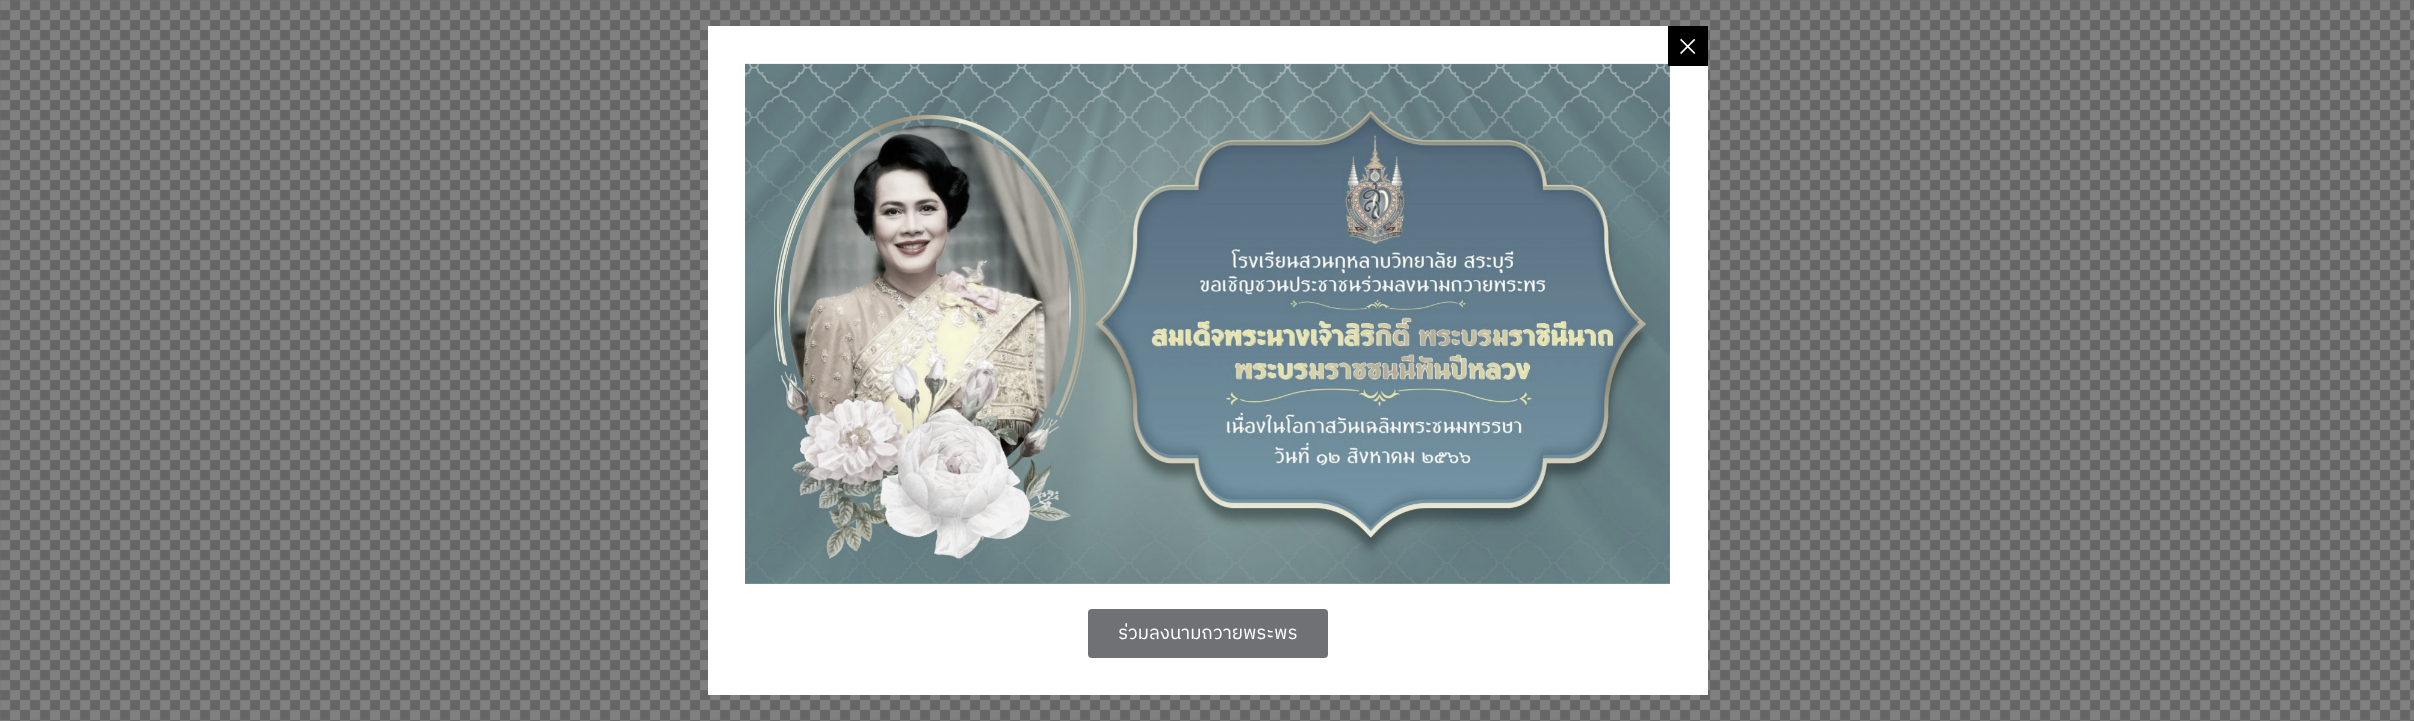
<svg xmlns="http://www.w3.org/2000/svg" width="2414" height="721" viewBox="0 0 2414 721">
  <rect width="100%" height="100%" fill="#fff"/>
  <image x="0" y="0" width="2414" height="721" href="img/1.png"/>
  <path d="M708 26h1000v669H708z" fill="#fff"/>
  <image x="745" y="63" width="925" height="521" href="img/3.png"/>
  <path d="M1668 26h40v40H1668z" fill="#000"/>
  <image x="1680" y="38" width="16" height="16" href="img/2.png"/>
  <rect x="1088" y="609" width="240" height="49" rx="4" fill="#6f7174"/>
  <text x="1118" y="639" font-family="IBM Plex Sans Thai" font-size="18.75" fill="#fff">ร่วมลงนามถวายพระพร</text>
</svg>
